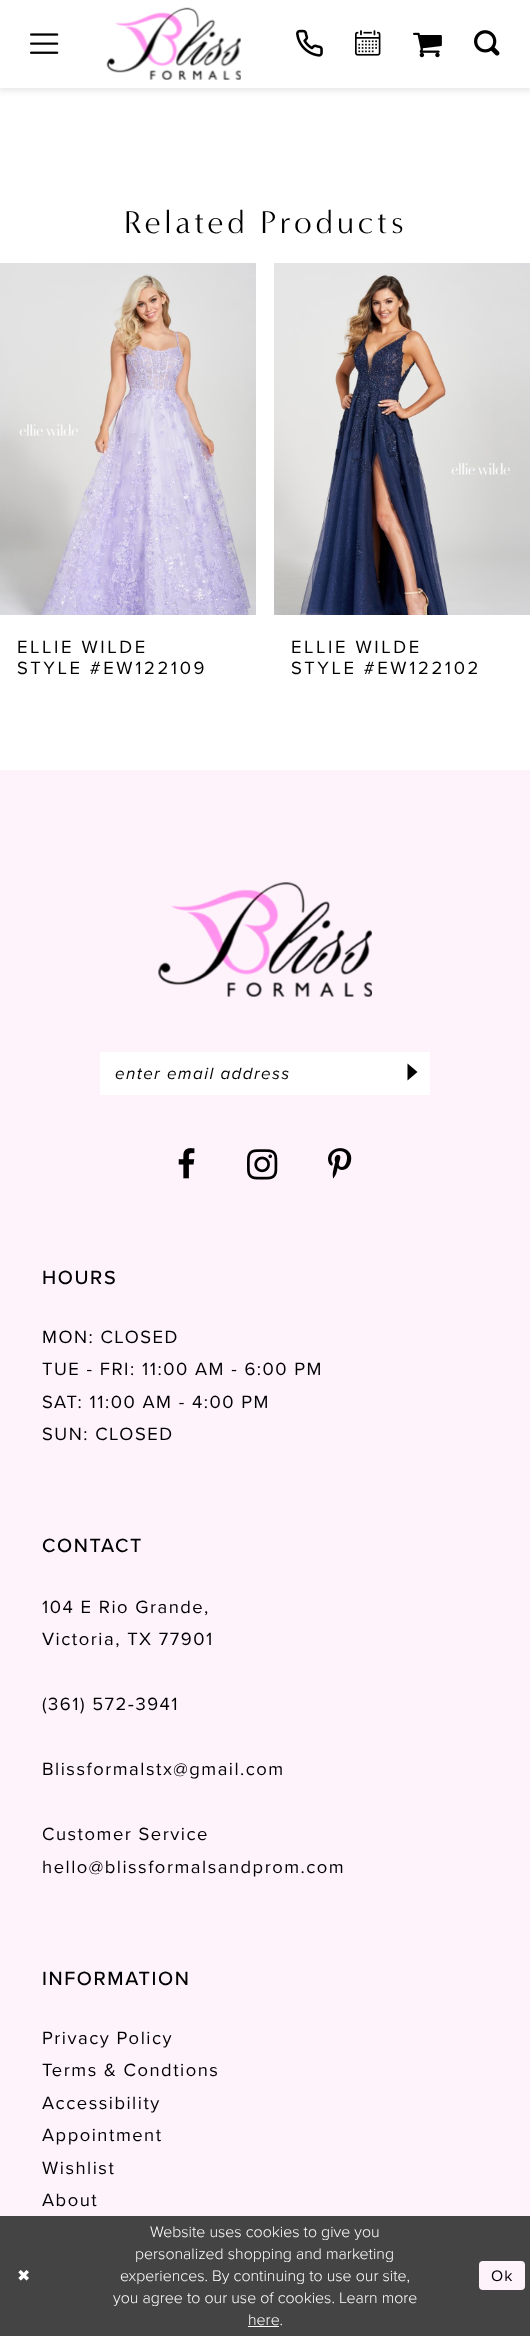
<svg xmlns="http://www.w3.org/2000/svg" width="530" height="2336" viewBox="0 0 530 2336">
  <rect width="100%" height="100%" fill="#fff"/>
  <path d="M-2 -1h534v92H-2z" fill="#1e1e1e1a" filter="blur(3px)"/>
  <path d="M0 0h530v88H0z" fill="#fff"/>
  <image x="30" y="33" width="29" height="21" href="img/1.png"/>
  <image x="106" y="7" width="135" height="73" href="img/2.png"/>
  <image x="296" y="29" width="27" height="28" href="img/3.png"/>
  <image x="355" y="30" width="26" height="26" href="img/4.png"/>
  <image x="413" y="32" width="29" height="26" href="img/5.png"/>
  <image x="474" y="30" width="26" height="26" href="img/6.png"/>
  <image x="0" y="263" width="256" height="352" href="img/7.png"/>
  <image x="274" y="263" width="256" height="352" href="img/8.png"/>
  <path d="M0 770h530v1446H0z" fill="#fff3fb"/>
  <image x="158" y="882" width="214" height="115" href="img/9.png"/>
  <path d="M100 1052h330v43H100z" fill="#fff"/>
  <path d="M417.5 1072L407.5 1063.5V1080.5Z" fill="#000"/>
  <image x="178" y="1148" width="17" height="31" href="img/10.png"/>
  <image x="247" y="1149" width="31" height="31" href="img/11.png"/>
  <image x="328" y="1148" width="24" height="31" href="img/12.png"/>
  <path d="M0 2216h530v120H0z" fill="#444"/>
  <path d="M248 2326h31v1H248z" fill="#fff"/>
  <rect x="479" y="2261" width="46" height="29" rx="4" fill="#fff3fb"/>
  <text x="124" y="233" font-family="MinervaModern" font-size="32.5" letter-spacing="3.75" fill="#000">Related Products</text>
  <g font-family="Proxima Nova" font-size="18.4" letter-spacing="2.6" fill="#000">
    <text x="17" y="653">ELLIE WILDE</text>
    <text x="17" y="674">STYLE #EW122109</text>
    <text x="291" y="653">ELLIE WILDE</text>
    <text x="291" y="674">STYLE #EW122102</text>
  </g>
  <text x="115" y="1079" font-family="Proxima Nova" font-size="17" font-style="italic" letter-spacing="1.4" fill="#000">enter email address</text>
  <text x="42" y="1284" font-family="Proxima Nova" font-size="19.75" font-weight="500" letter-spacing="1.6" fill="#000">HOURS</text>
  <g font-family="Proxima Nova" font-size="18.4" letter-spacing="1.5" fill="#000">
    <text x="42" y="1343">MON: CLOSED</text>
    <text x="42" y="1375">TUE - FRI: 11:00 AM - 6:00 PM</text>
    <text x="42" y="1408">SAT: 11:00 AM - 4:00 PM</text>
    <text x="42" y="1440">SUN: CLOSED</text>
  </g>
  <text x="42" y="1552" font-family="Proxima Nova" font-size="19.75" font-weight="500" letter-spacing="1.6" fill="#000">CONTACT</text>
  <g font-family="Proxima Nova" font-size="18.4" letter-spacing="1.5" fill="#000">
    <text x="42" y="1613">104 E Rio Grande,</text>
    <text x="42" y="1645">Victoria, TX 77901</text>
    <text x="42" y="1710">(361) 572‑3941</text>
    <text x="42" y="1775">Blissformalstx@gmail.com</text>
    <text x="42" y="1840">Customer Service</text>
    <text x="42" y="1873">hello@blissformalsandprom.com</text>
  </g>
  <text x="42" y="1985" font-family="Proxima Nova" font-size="19.75" font-weight="500" letter-spacing="1.6" fill="#000">INFORMATION</text>
  <g font-family="Proxima Nova" font-size="18.4" letter-spacing="1.5" fill="#000">
    <text x="42" y="2044">Privacy Policy</text>
    <text x="42" y="2076">Terms &amp; Condtions</text>
    <text x="42" y="2109">Accessibility</text>
    <text x="42" y="2141">Appointment</text>
    <text x="42" y="2174">Wishlist</text>
    <text x="42" y="2206">About</text>
  </g>
  <text x="17" y="2281" font-family="DejaVu Sans" font-size="15.9" letter-spacing="1" fill="#fff">✖</text>
  <g font-family="Proxima Nova" font-size="15.9" font-weight="300" fill="#fff">
    <text x="150" y="2237">Website uses cookies to give you</text>
    <text x="135" y="2259">personalized shopping and marketing</text>
    <text x="120" y="2281">experiences. By continuing to use our site,</text>
    <text x="113" y="2303">you agree to our use of cookies. Learn more</text>
    <text x="248" y="2325">here.</text>
  </g>
  <text x="491" y="2281" font-family="Proxima Nova" font-size="15.9" letter-spacing="1" fill="#000">Ok</text>
</svg>
